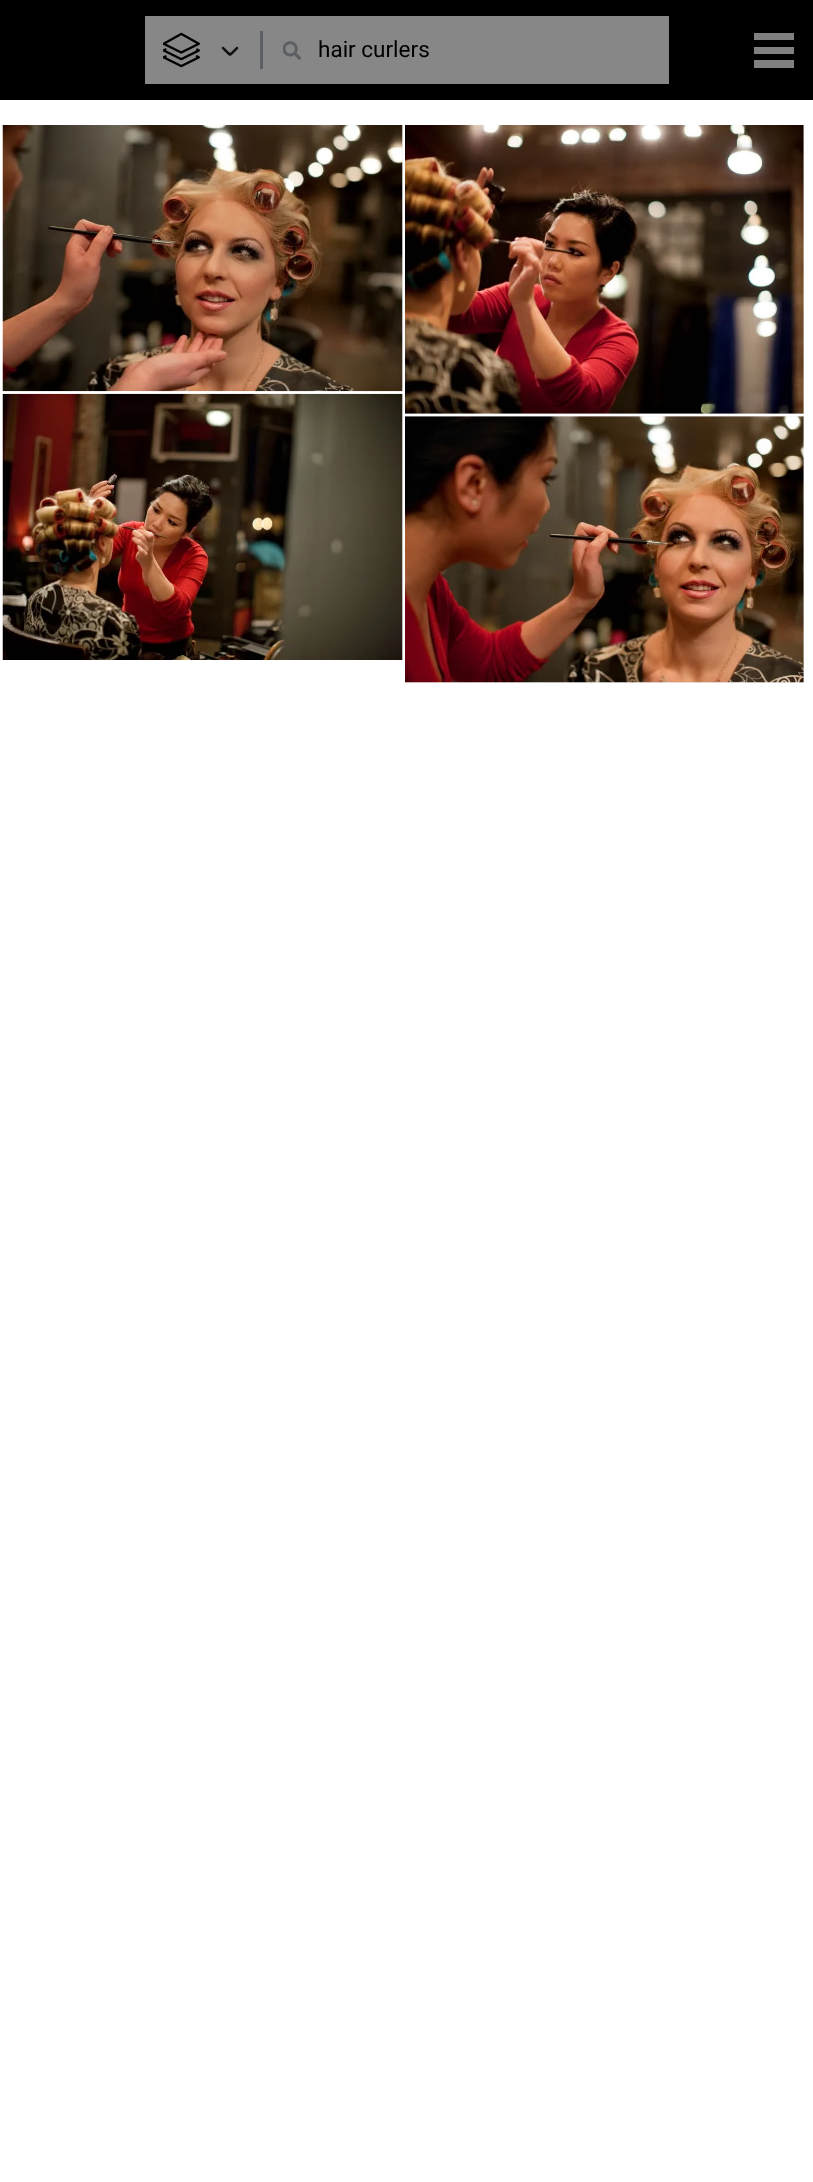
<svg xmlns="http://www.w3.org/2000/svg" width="813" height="2182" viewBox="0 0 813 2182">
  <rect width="100%" height="100%" fill="#fff"/>
  <path d="M0 0h813v100H0z" fill="#000"/>
  <path d="M145 16h524v68H145z" fill="#878787"/>
  <image x="163" y="32" width="37" height="36" href="img/1.png"/>
  <image x="221" y="46" width="18" height="10" href="img/2.png"/>
  <path d="M260 31h3v38H260z" fill="#5c5f63"/>
  <image x="283" y="41" width="18" height="19" href="img/3.png"/>
  <path d="M754 33H794V40H754ZM754 47H794V54H754ZM754 60H794V68H754Z" fill="#808080"/>
  <path d="M402 125h1v266H402z" fill="#f0f0f0"/>
  <image x="2" y="125" width="401" height="267" href="img/4.png"/>
  <path d="M405 125h399v289H405z" fill="#f0f0f0"/>
  <image x="405" y="125" width="399" height="289" href="img/5.png"/>
  <path d="M402 394h1v266H402z" fill="#f0f0f0"/>
  <image x="2" y="393" width="401" height="267" href="img/6.png"/>
  <path d="M405 416h399v267H405z" fill="#f0f0f0"/>
  <image x="405" y="416" width="399" height="267" href="img/7.png"/>
  <text x="318" y="57" font-family="Roboto" font-size="22.5" fill="#000">hair curlers</text>
</svg>
